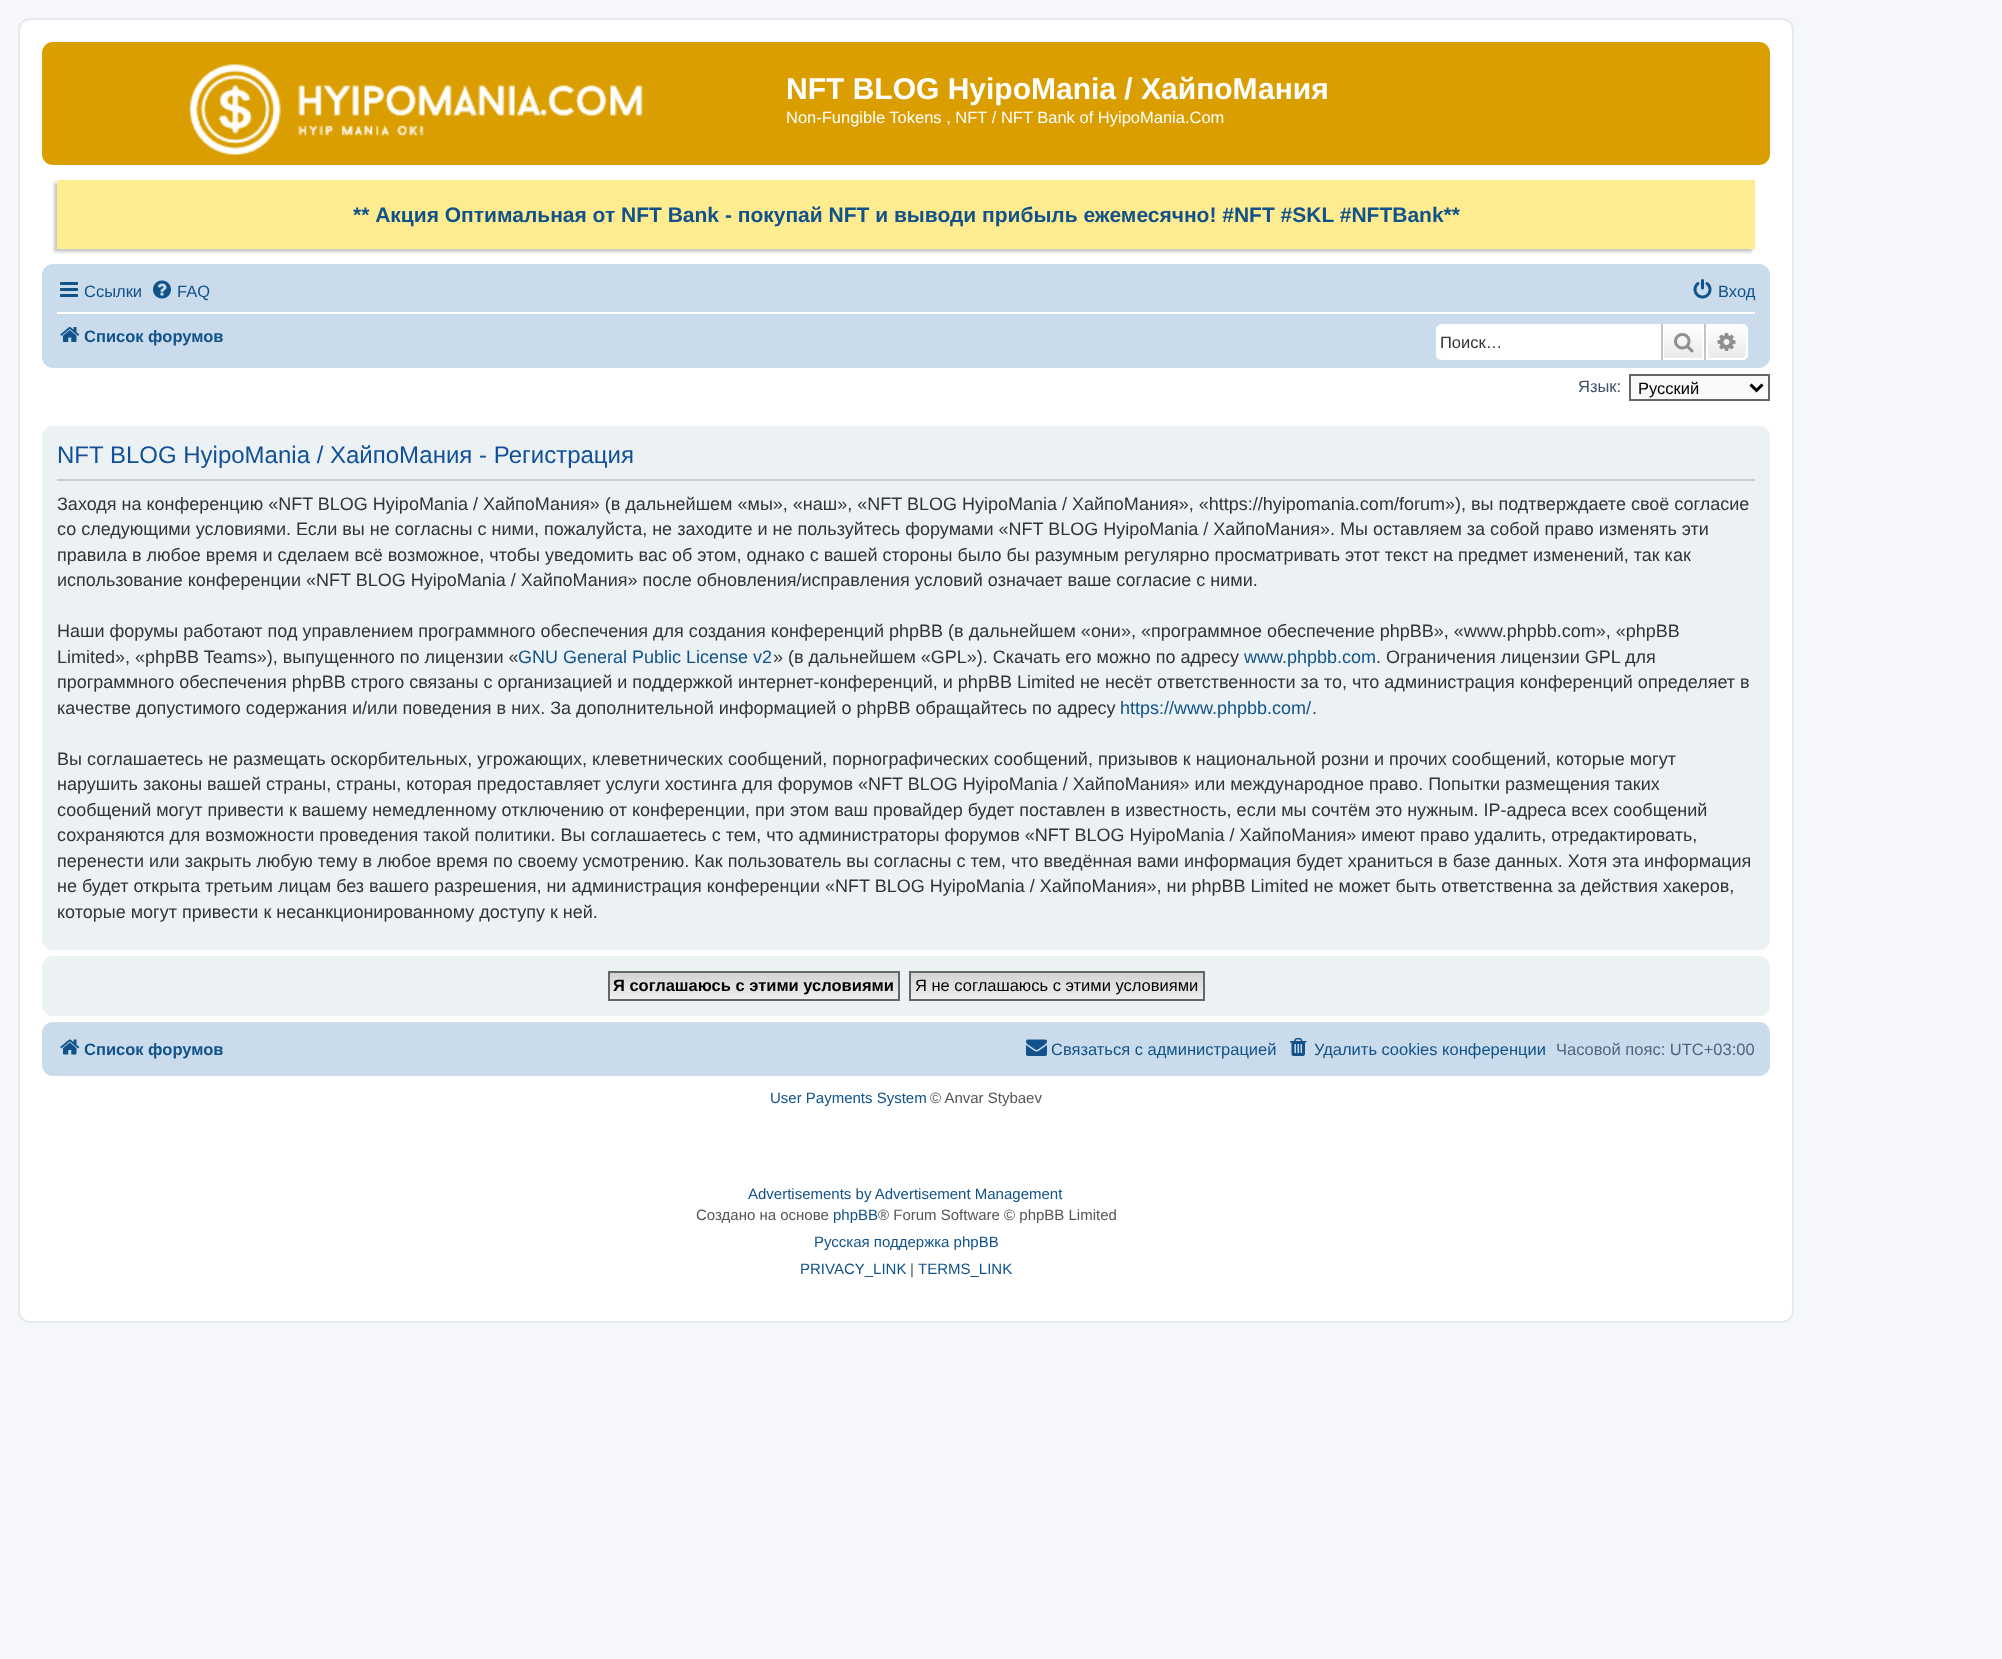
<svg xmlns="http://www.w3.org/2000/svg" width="2002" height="1659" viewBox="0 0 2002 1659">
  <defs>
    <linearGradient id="g1" gradientUnits="userSpaceOnUse" x1="1683" y1="324" x2="1683" y2="360"><stop offset="0" stop-color="#fff"/><stop offset="1" stop-color="#e9e9e9"/></linearGradient>
    <linearGradient id="g2" gradientUnits="userSpaceOnUse" x1="1727" y1="324" x2="1727" y2="360"><stop offset="0" stop-color="#fff"/><stop offset="1" stop-color="#e9e9e9"/></linearGradient>
    <linearGradient id="g3" gradientUnits="userSpaceOnUse" x1="754" y1="972" x2="754" y2="999"><stop offset="0" stop-color="#d2d2d2"/><stop offset="1" stop-color="#efefef"/></linearGradient>
    <linearGradient id="g4" gradientUnits="userSpaceOnUse" x1="1057" y1="972" x2="1057" y2="999"><stop offset="0" stop-color="#d2d2d2"/><stop offset="1" stop-color="#efefef"/></linearGradient>
  </defs>
  <rect width="100%" height="100%" fill="#f5f7fa"/>
  <rect x="19" y="19" width="1774" height="1303" rx="11" fill="#fff" stroke="#e6e9ed" stroke-width="2"/>
  <rect x="42" y="42" width="1728" height="123" rx="11" fill="#da9e00"/>
  <image x="188" y="64" width="455" height="91" href="img/1.png"/>
  <path d="M54 183h1698v69H54z" fill="#c8c8c8" filter="blur(1.5px)"/>
  <path d="M57 180h1698v69H57z" fill="#ffeb90"/>
  <rect x="42" y="264" width="1728" height="104" rx="11" fill="#cadceb"/>
  <image x="60" y="282" width="18" height="15" href="img/2.png"/>
  <image x="153" y="280" width="18" height="19" href="img/3.png"/>
  <image x="1693" y="279" width="19" height="20" href="img/4.png"/>
  <path d="M57 312h1698v2H57z" fill="#fff"/>
  <image x="60" y="327" width="20" height="15" href="img/5.png"/>
  <path d="M1442 324H1661V360H1442C1438.5 360 1436 357.5 1436 354V330C1436 326.5 1438.5 324 1442 324Z" fill="#fff"/>
  <path d="M1664 326h38v32H1664z" fill="url(#g1)"/>
  <path d="M1663 325h40v34H1663z" fill="none" stroke="#fff" stroke-width="2"/>
  <path d="M1704 324h2v36H1704z" fill="#c7c3bf"/>
  <path d="M1661 324h2v36H1661z" fill="#c7c3bf"/>
  <image x="1674" y="333" width="20" height="20" href="img/6.png"/>
  <path d="M1707 325H1742C1745 325 1747 327 1747 330V354C1747 357 1745 359 1742 359H1707Z" fill="url(#g2)" stroke="#fff" stroke-width="2"/>
  <image x="1717" y="333" width="19" height="18" href="img/7.png"/>
  <path d="M1630 375h139v25H1630z" fill="#fafafa" stroke="#666" stroke-width="2"/>
  <path d="M1750.5 384.5L1756.5 390.5L1762.5 384.5" fill="none" stroke="#000" stroke-width="3"/>
  <rect x="42" y="426" width="1728" height="524" rx="11" fill="#ecf1f3"/>
  <path d="M57 479h1698v2H57z" fill="#ccc"/>
  <rect x="42" y="956" width="1728" height="60" rx="11" fill="#ecf1f3"/>
  <path d="M610 973h288v26H610z" fill="url(#g3)"/>
  <path d="M609 972h290v28H609z" fill="none" stroke="#666" stroke-width="2"/>
  <path d="M911 973h292v26H911z" fill="url(#g4)"/>
  <path d="M910 972h294v28H910z" fill="none" stroke="#666" stroke-width="2"/>
  <rect x="42" y="1022" width="1728" height="54" rx="11" fill="#cadceb"/>
  <image x="60" y="1039" width="20" height="16" href="img/8.png"/>
  <image x="1026" y="1039" width="21" height="17" href="img/9.png"/>
  <image x="1290" y="1038" width="17" height="18" href="img/10.png"/>
  <text x="786" y="99" font-family="Liberation Sans" font-size="30" font-weight="bold" fill="#fff">NFT BLOG HyipoMania / ХайпоМания</text>
  <text x="786" y="123" font-family="Liberation Sans" font-size="16.5" fill="#fff">Non-Fungible Tokens , NFT / NFT Bank of HyipoMania.Com</text>
  <text x="353" y="222" font-family="Liberation Sans" font-size="21" font-weight="bold" fill="#105289">** Акция Оптимальная от NFT Bank - покупай NFT и выводи прибыль ежемесячно! #NFT #SKL #NFTBank**</text>
  <g font-family="Liberation Sans" font-size="16.5" fill="#105289">
    <text x="84" y="297">Ссылки</text>
    <text x="177" y="297">FAQ</text>
    <text x="1718" y="297">Вход</text>
  </g>
  <text x="84" y="342" font-family="Liberation Sans" font-size="16.5" font-weight="bold" fill="#105289">Список форумов</text>
  <text x="1440" y="348" font-family="Liberation Sans" font-size="16.5" fill="#333">Поиск…</text>
  <text x="1578" y="392" font-family="Liberation Sans" font-size="16.5" fill="#425067">Язык:</text>
  <text x="1638" y="394" font-family="Liberation Sans" font-size="16.5" fill="#000">Русский</text>
  <text x="57" y="463" font-family="Liberation Sans" font-size="24" fill="#115098">NFT BLOG HyipoMania / ХайпоМания - Регистрация</text>
  <g font-family="Liberation Sans" font-size="18" fill="#333">
    <text x="57" y="510">Заходя на конференцию «NFT BLOG HyipoMania / ХайпоМания» (в дальнейшем «мы», «наш», «NFT BLOG HyipoMania / ХайпоМания», «https://hyipomania.com/forum»), вы подтверждаете своё согласие</text>
    <text x="57" y="535">со следующими условиями. Если вы не согласны с ними, пожалуйста, не заходите и не пользуйтесь форумами «NFT BLOG HyipoMania / ХайпоМания». Мы оставляем за собой право изменять эти</text>
    <text x="57" y="561">правила в любое время и сделаем всё возможное, чтобы уведомить вас об этом, однако с вашей стороны было бы разумным регулярно просматривать этот текст на предмет изменений, так как</text>
    <text x="57" y="586">использование конференции «NFT BLOG HyipoMania / ХайпоМания» после обновления/исправления условий означает ваше согласие с ними.</text>
    <text x="57" y="637">Наши форумы работают под управлением программного обеспечения для создания конференций phpBB (в дальнейшем «они», «программное обеспечение phpBB», «www.phpbb.com», «phpBB</text>
    <text x="57" y="663">Limited», «phpBB Teams»), выпущенного по лицензии «</text>
  </g>
  <text x="518" y="663" font-family="Liberation Sans" font-size="18" fill="#105289">GNU General Public License v2</text>
  <text x="773" y="663" font-family="Liberation Sans" font-size="18" fill="#333">» (в дальнейшем «GPL»). Скачать его можно по адресу</text>
  <text x="1244" y="663" font-family="Liberation Sans" font-size="18" fill="#105289">www.phpbb.com</text>
  <g font-family="Liberation Sans" font-size="18" fill="#333">
    <text x="1376" y="663">. Ограничения лицензии GPL для</text>
    <text x="57" y="688">программного обеспечения phpBB строго связаны с организацией и поддержкой интернет-конференций, и phpBB Limited не несёт ответственности за то, что администрация конференций определяет в</text>
    <text x="57" y="714">качестве допустимого содержания и/или поведения в них. За дополнительной информацией о phpBB обращайтесь по адресу</text>
  </g>
  <text x="1120" y="714" font-family="Liberation Sans" font-size="18" fill="#105289">https://www.phpbb.com/</text>
  <g font-family="Liberation Sans" font-size="18" fill="#333">
    <text x="1312" y="714">.</text>
    <text x="57" y="765">Вы соглашаетесь не размещать оскорбительных, угрожающих, клеветнических сообщений, порнографических сообщений, призывов к национальной розни и прочих сообщений, которые могут</text>
    <text x="57" y="790">нарушить законы вашей страны, страны, которая предоставляет услуги хостинга для форумов «NFT BLOG HyipoMania / ХайпоМания» или международное право. Попытки размещения таких</text>
    <text x="57" y="816">сообщений могут привести к вашему немедленному отключению от конференции, при этом ваш провайдер будет поставлен в известность, если мы сочтём это нужным. IP-адреса всех сообщений</text>
    <text x="57" y="841">сохраняются для возможности проведения такой политики. Вы соглашаетесь с тем, что администраторы форумов «NFT BLOG HyipoMania / ХайпоМания» имеют право удалить, отредактировать,</text>
    <text x="57" y="867">перенести или закрыть любую тему в любое время по своему усмотрению. Как пользователь вы согласны с тем, что введённая вами информация будет храниться в базе данных. Хотя эта информация</text>
    <text x="57" y="892">не будет открыта третьим лицам без вашего разрешения, ни администрация конференции «NFT BLOG HyipoMania / ХайпоМания», ни phpBB Limited не может быть ответственна за действия хакеров,</text>
    <text x="57" y="918">которые могут привести к несанкционированному доступу к ней.</text>
  </g>
  <text x="613" y="991" font-family="Liberation Sans" font-size="16.5" font-weight="bold" fill="#000">Я соглашаюсь с этими условиями</text>
  <text x="915" y="991" font-family="Liberation Sans" font-size="16.5" fill="#000">Я не соглашаюсь с этими условиями</text>
  <text x="84" y="1055" font-family="Liberation Sans" font-size="16.5" font-weight="bold" fill="#105289">Список форумов</text>
  <g font-family="Liberation Sans" font-size="16.5" fill="#105289">
    <text x="1051" y="1055">Связаться с администрацией</text>
    <text x="1314" y="1055">Удалить cookies конференции</text>
  </g>
  <text x="1556" y="1055" font-family="Liberation Sans" font-size="16.5" fill="#536482">Часовой пояс: UTC+03:00</text>
  <text x="770" y="1103" font-family="Liberation Sans" font-size="15" fill="#105289">User Payments System</text>
  <text x="930" y="1103" font-family="Liberation Sans" font-size="15" fill="#555">© Anvar Stybaev</text>
  <text x="748" y="1199" font-family="Liberation Sans" font-size="15" fill="#105289">Advertisements by Advertisement Management</text>
  <text x="696" y="1220" font-family="Liberation Sans" font-size="15" fill="#555">Создано на основе</text>
  <text x="833" y="1220" font-family="Liberation Sans" font-size="15" fill="#105289">phpBB</text>
  <text x="878" y="1220" font-family="Liberation Sans" font-size="15" fill="#555">® Forum Software © phpBB Limited</text>
  <g font-family="Liberation Sans" font-size="15" fill="#105289">
    <text x="814" y="1247">Русская поддержка phpBB</text>
    <text x="800" y="1274">PRIVACY_LINK</text>
  </g>
  <text x="910" y="1274" font-family="Liberation Sans" font-size="15" fill="#555">|</text>
  <text x="918" y="1274" font-family="Liberation Sans" font-size="15" fill="#105289">TERMS_LINK</text>
</svg>
